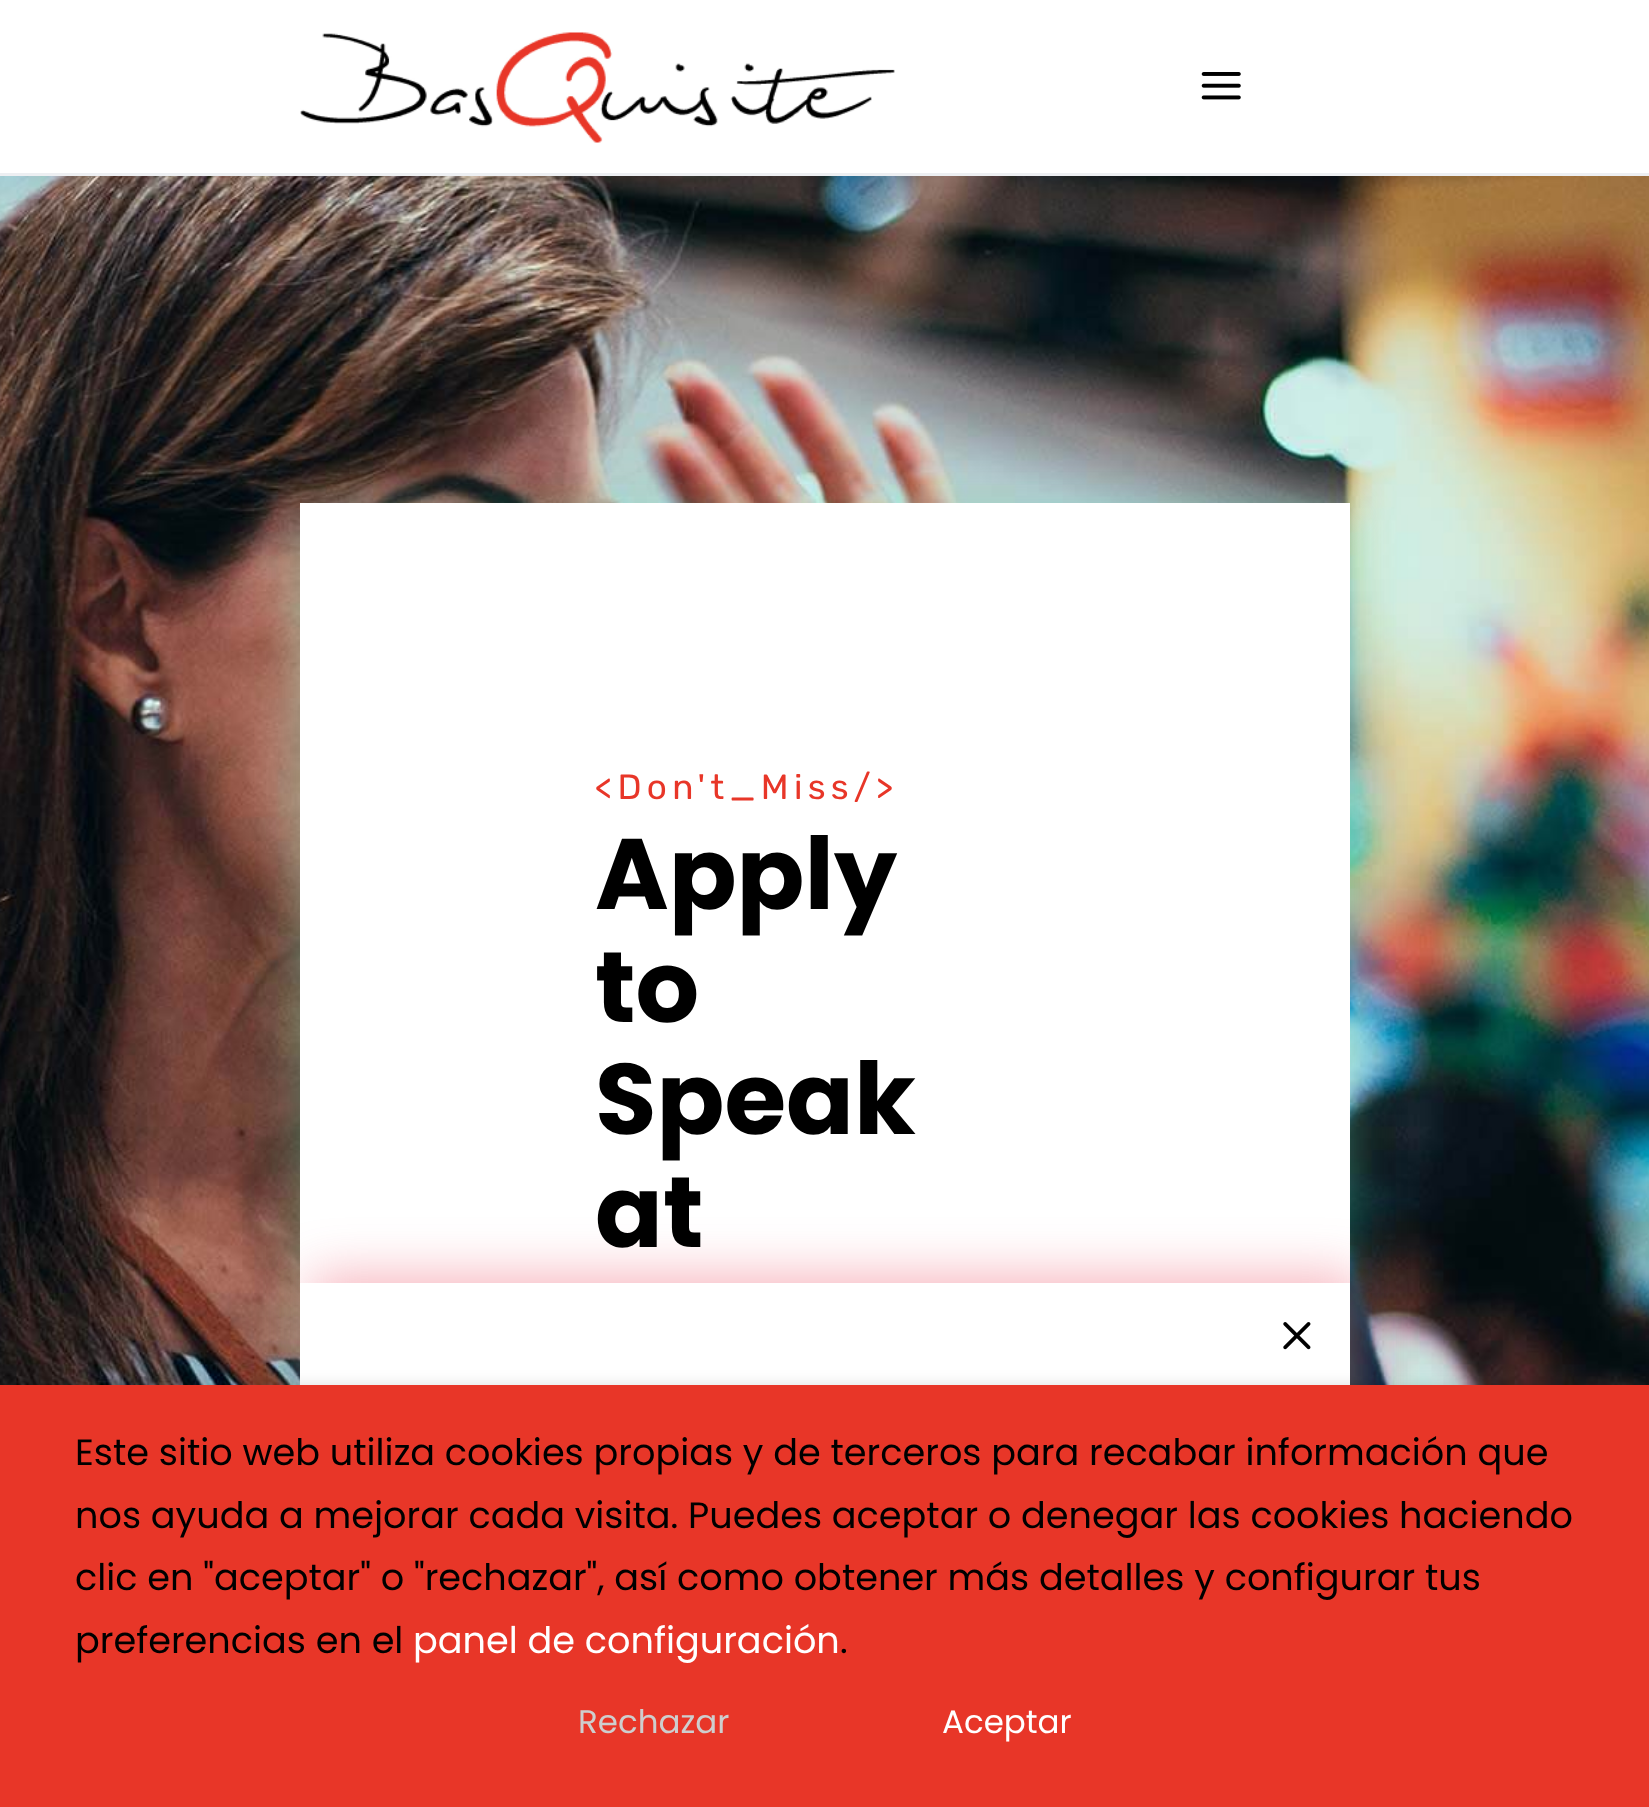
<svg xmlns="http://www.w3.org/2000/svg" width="1649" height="1807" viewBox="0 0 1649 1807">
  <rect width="100%" height="100%" fill="#fff"/>
  <path d="M0 173h1649v3H0z" fill="#edeff2"/>
  <image x="300" y="32" width="595" height="111" href="img/1.png"/>
  <image x="1201" y="72" width="40" height="28" href="img/2.png"/>
  <image x="0" y="176" width="1649" height="1209" href="img/3.png"/>
  <path d="M300 515h1050v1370H300z" fill="#53f6c65e" filter="blur(26px)"/>
  <path d="M300 503h1050v780H300z" fill="#fff"/>
  <path d="M310 1275h1050v463H310z" fill="#e8354e5e" filter="blur(26px)"/>
  <path d="M300 1283h1050v102H300z" fill="#fff"/>
  <image x="1283" y="1322" width="28" height="28" href="img/4.png"/>
  <path d="M0 1398h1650v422H0z" fill="#00000080" filter="blur(12.5px)"/>
  <path d="M0 1385h1649v422H0z" fill="#e83628"/>
  <text x="595" y="799" font-family="Rubik" font-size="35" letter-spacing="5.25" fill="#e83628">&lt;Don't_Miss/&gt;</text>
  <g font-family="Poppins" font-size="100" font-weight="bold" fill="#000">
    <text x="595" y="909">Apply</text>
    <text x="595" y="1022">to</text>
    <text x="595" y="1134">Speak</text>
    <text x="595" y="1247">at</text>
  </g>
  <g font-family="Poppins" font-size="36.65" fill="#000">
    <text x="75" y="1465">Este sitio web utiliza cookies propias y de terceros para recabar información que</text>
    <text x="75" y="1528">nos ayuda a mejorar cada visita. Puedes aceptar o denegar las cookies haciendo</text>
    <text x="75" y="1590">clic en "aceptar" o "rechazar", así como obtener más detalles y configurar tus</text>
    <text x="75" y="1653">preferencias en el</text>
  </g>
  <text x="413" y="1653" font-family="Poppins" font-size="36.65" fill="#fff">panel de configuración</text>
  <text x="840" y="1653" font-family="Poppins" font-size="36.65" fill="#000">.</text>
  <text x="578" y="1733" font-family="Poppins" font-size="32.5" fill="#cecece">Rechazar</text>
  <text x="942" y="1733" font-family="Poppins" font-size="32.5" fill="#fff">Aceptar</text>
</svg>
